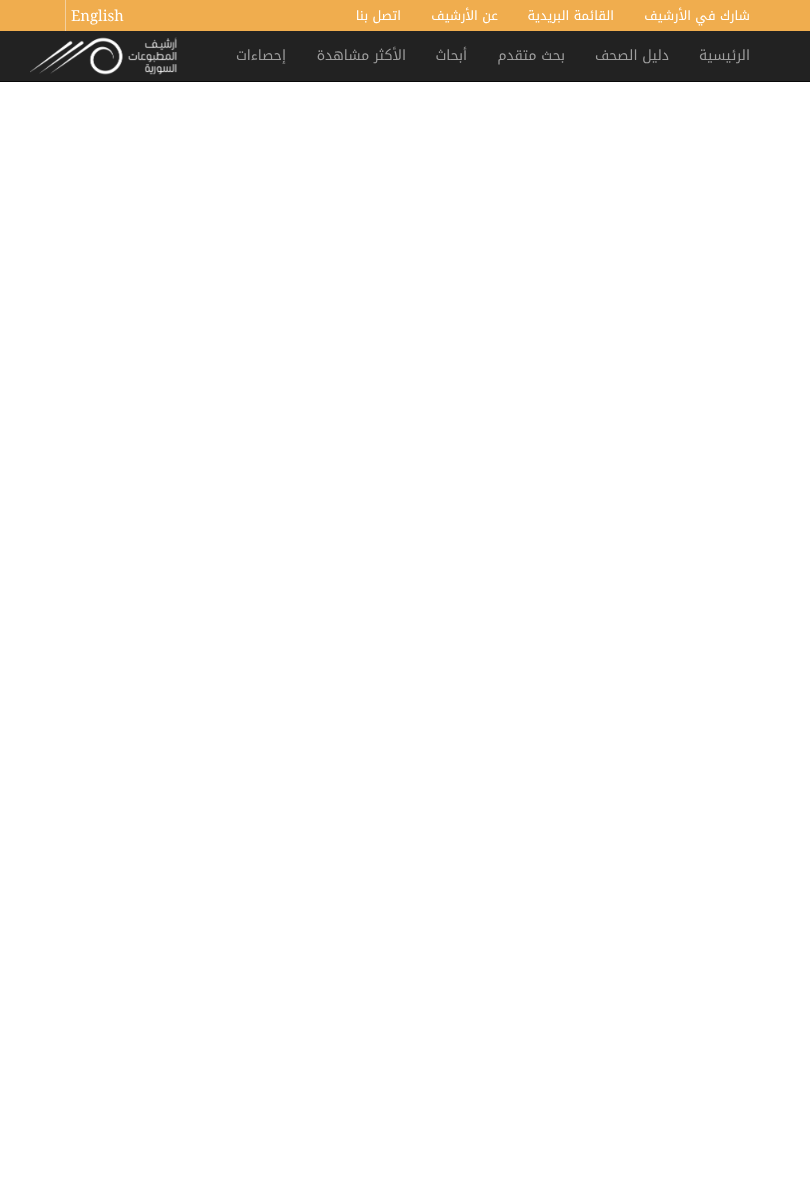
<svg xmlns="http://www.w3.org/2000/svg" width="810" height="1194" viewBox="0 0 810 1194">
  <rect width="100%" height="100%" fill="#fff"/>
  <path d="M0 0h810v31H0z" fill="#f0ad4e"/>
  <path d="M65 0h1v34H65z" fill="#f3d0a0"/>
  <path d="M0 31h810v50H0z" fill="#222"/>
  <path d="M0 81h810v1H0z" fill="#080808"/>
  <image x="30" y="37" width="147" height="38" href="img/1.png"/>
  <g font-family="Noto Kufi Arabic" font-size="13" direction="rtl" fill="#fff">
    <text x="750" y="20">شارك في الأرشيف</text>
    <text x="614" y="20">القائمة البريدية</text>
    <text x="498" y="20">عن الأرشيف</text>
    <text x="401" y="20">اتصل بنا</text>
  </g>
  <text x="71" y="21" font-family="Noto Naskh Arabic" font-size="15" fill="#fff">English</text>
  <g font-family="Noto Kufi Arabic" font-size="14" direction="rtl" fill="#9d9d9d">
    <text x="750" y="60">الرئيسية</text>
    <text x="669" y="60">دليل الصحف</text>
    <text x="565" y="60">بحث متقدم</text>
    <text x="467" y="60">أبحاث</text>
    <text x="406" y="60">الأكثر مشاهدة</text>
    <text x="286" y="60">إحصاءات</text>
  </g>
</svg>
